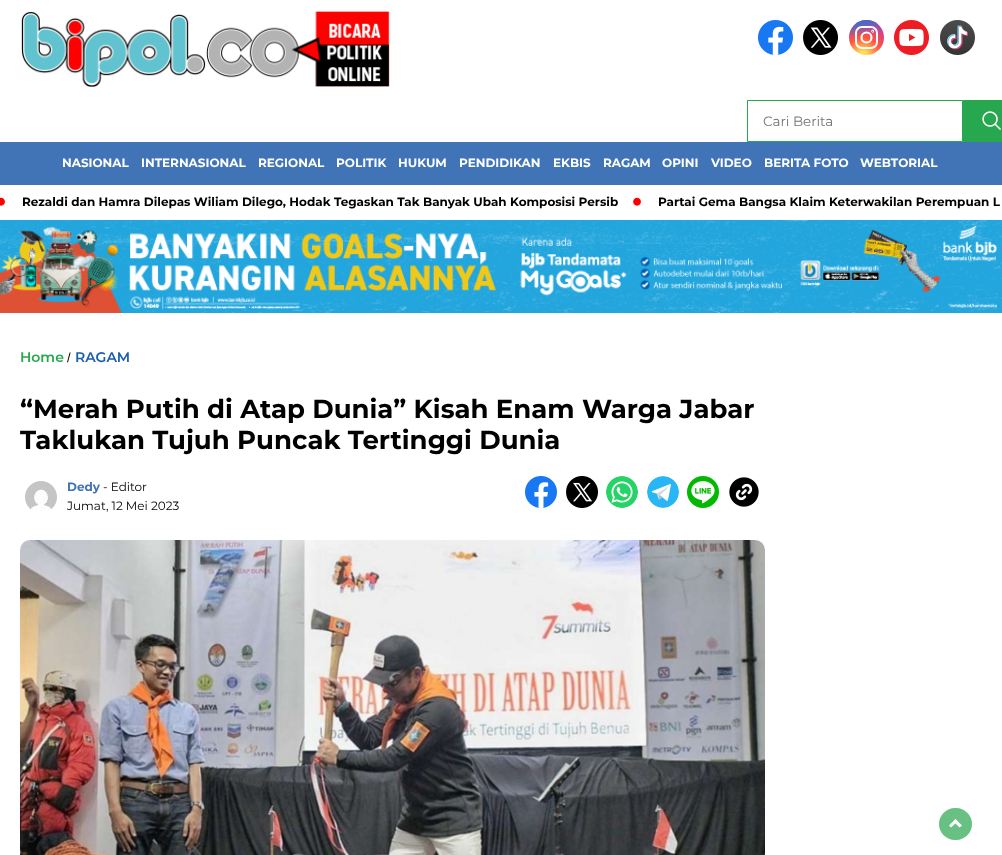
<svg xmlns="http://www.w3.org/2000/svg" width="1002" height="855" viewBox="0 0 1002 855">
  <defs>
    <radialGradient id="g1" gradientUnits="userSpaceOnUse" cx="863" cy="55" r="35"><stop offset="0.1" stop-color="#fd5"/><stop offset="0.5" stop-color="#ff543e"/><stop offset="1" stop-color="#c837ab"/></radialGradient>
    <linearGradient id="g2" gradientUnits="userSpaceOnUse" x1="849" y1="20" x2="856" y2="55"><stop offset="0.1" stop-color="#3771c8"/><stop offset="0.5" stop-color="#3771c8" stop-opacity="0"/></linearGradient>
  </defs>
  <rect width="100%" height="100%" fill="#fff"/>
  <image x="21" y="11" width="369" height="76" href="img/1.png"/>
  <image x="758" y="20" width="35" height="35" href="img/2.png"/>
  <image x="803" y="20" width="35" height="35" href="img/3.png"/>
  <circle cx="866.5" cy="37.5" r="17.5" fill="url(#g1)"/>
  <circle cx="866.5" cy="37.5" r="17.5" fill="url(#g2)"/>
  <rect x="856" y="27" width="21" height="21" rx="6" fill="none" stroke="#fff" stroke-width="2"/>
  <circle cx="866.5" cy="37.5" r="5" fill="none" stroke="#fff" stroke-width="2.1"/>
  <circle cx="872.7" cy="31.3" r="0.4" fill="none" stroke="#fff" stroke-width="2.1"/>
  <image x="894" y="20" width="35" height="35" href="img/4.png"/>
  <image x="940" y="20" width="35" height="35" href="img/5.png"/>
  <path d="M747.5 100.5h215v41H747.5z" fill="none" stroke="#27a74e"/>
  <path d="M963 100h39v42H963z" fill="#27a74e"/>
  <image x="982" y="111" width="19" height="19" href="img/6.png"/>
  <path d="M0 142h1002v43H0z" fill="#4174b7"/>
  <image x="0" y="220" width="1002" height="93" href="img/7.png"/>
  <image x="25" y="481" width="32" height="30" href="img/8.png"/>
  <image x="525" y="476" width="32" height="32" href="img/9.png"/>
  <image x="566" y="476" width="32" height="32" href="img/10.png"/>
  <image x="606" y="476" width="32" height="32" href="img/11.png"/>
  <image x="647" y="476" width="32" height="32" href="img/12.png"/>
  <image x="687" y="476" width="32" height="32" href="img/13.png"/>
  <image x="729" y="477" width="30" height="30" href="img/14.png"/>
  <image x="20" y="540" width="745" height="315" href="img/15.png"/>
  <rect x="939" y="808" width="33" height="32" rx="16" fill="#68c183"/>
  <path d="M951 827.5L949 825.5L955.5 819L957.5 821.5Z" fill="#fff"/>
  <path d="M959.5 827.5L953.5 821.5L955.5 819L962 825.5Z" fill="#fff"/>
  <text x="763" y="126" font-family="Montserrat" font-size="13.5" fill="#757575">Cari Berita</text>
  <g font-family="Montserrat" font-size="12" font-weight="bold" fill="#fff">
    <text x="62" y="167">NASIONAL</text>
    <text x="141" y="167">INTERNASIONAL</text>
    <text x="258" y="167">REGIONAL</text>
    <text x="336" y="167">POLITIK</text>
    <text x="398" y="167">HUKUM</text>
    <text x="459" y="167">PENDIDIKAN</text>
    <text x="553" y="167">EKBIS</text>
    <text x="603" y="167">RAGAM</text>
    <text x="662" y="167">OPINI</text>
    <text x="711" y="167">VIDEO</text>
    <text x="764" y="167">BERITA FOTO</text>
    <text x="860" y="167">WEBTORIAL</text>
  </g>
  <text x="-5" y="213" font-family="Montserrat" font-size="40" font-weight="bold" fill="#f00">·</text>
  <text x="22" y="206" font-family="Montserrat" font-size="12" font-weight="bold" fill="#000">Rezaldi dan Hamra Dilepas Wiliam Dilego, Hodak Tegaskan Tak Banyak Ubah Komposisi Persib</text>
  <text x="631" y="213" font-family="Montserrat" font-size="40" font-weight="bold" fill="#f00">·</text>
  <text x="658" y="206" font-family="Montserrat" font-size="12" font-weight="bold" fill="#000">Partai Gema Bangsa Klaim Keterwakilan Perempuan L</text>
  <text x="20" y="362" font-family="Montserrat" font-size="14" font-weight="600" fill="#27a74e">Home</text>
  <text x="67" y="362" font-family="Liberation Sans" font-size="13" fill="#000">/</text>
  <text x="75" y="362" font-family="Montserrat" font-size="14" font-weight="600" fill="#1b5daf">RAGAM</text>
  <g font-family="Montserrat" font-size="26" font-weight="bold" fill="#000">
    <text x="20" y="418">“Merah Putih di Atap Dunia” Kisah Enam Warga Jabar</text>
    <text x="20" y="449">Taklukan Tujuh Puncak Tertinggi Dunia</text>
  </g>
  <text x="67" y="491" font-family="Montserrat" font-size="12" font-weight="bold" fill="#4174b7">Dedy</text>
  <g font-family="Montserrat" font-size="12" fill="#000">
    <text x="103" y="491">- Editor</text>
    <text x="67" y="510">Jumat, 12 Mei 2023</text>
  </g>
</svg>
